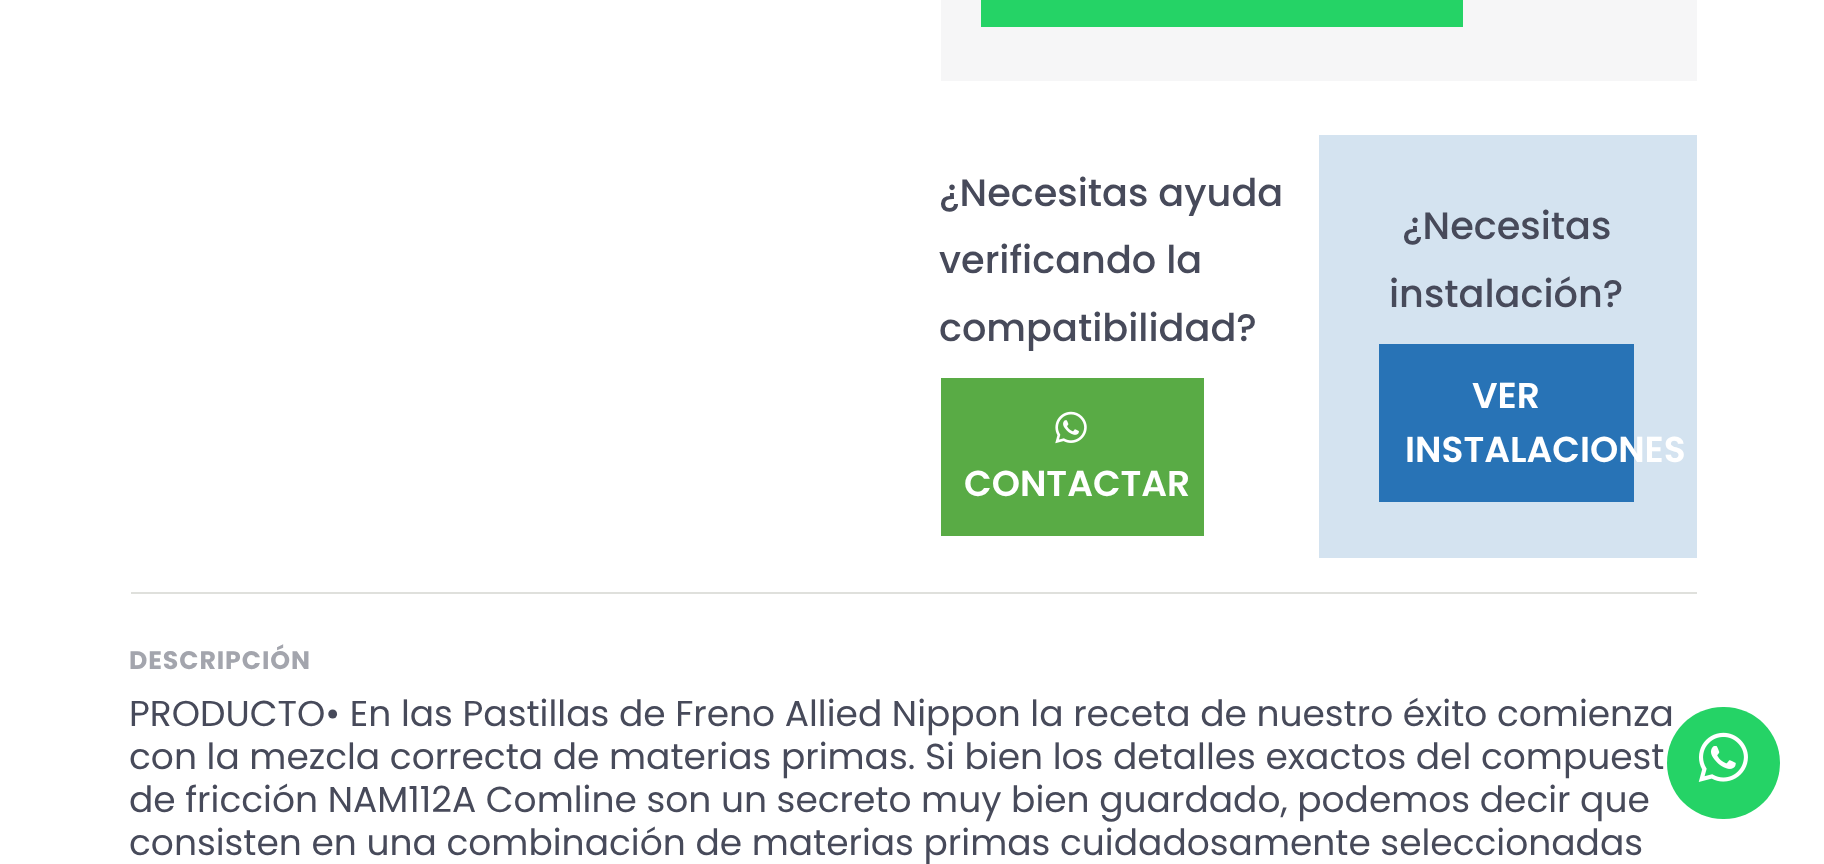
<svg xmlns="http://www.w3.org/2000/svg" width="1824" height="864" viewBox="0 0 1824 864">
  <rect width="100%" height="100%" fill="#fff"/>
  <path d="M941 0h756v81H941z" fill="#f6f6f7"/>
  <path d="M981 0h482v27H981z" fill="#25d366"/>
  <path d="M941 378h263v158H941z" fill="#59ab45"/>
  <image x="1055" y="411" width="32" height="33" href="img/1.png"/>
  <path d="M1319 135h378v423H1319z" fill="#d4e3f0"/>
  <path d="M1379 344h255v158H1379z" fill="#2873b6"/>
  <path d="M131 592h1566v2H131z" fill="#dfe0dc"/>
  <g font-family="Poppins" font-size="38.25" font-weight="500" fill="#474a5a">
    <text x="939" y="206">¿Necesitas ayuda</text>
    <text x="939" y="273">verificando la</text>
    <text x="939" y="341">compatibilidad?</text>
  </g>
  <text x="964" y="496" font-family="Poppins" font-size="36" font-weight="600" fill="#fff">CONTACTAR</text>
  <g font-family="Poppins" font-size="38.25" font-weight="500" fill="#474a5a">
    <text x="1402" y="239">¿Necesitas</text>
    <text x="1389" y="307">instalación?</text>
  </g>
  <g font-family="Poppins" font-size="36" font-weight="600" fill="#fff">
    <text x="1472" y="408">VER</text>
    <text x="1405" y="462">INSTALACIONES</text>
  </g>
  <text x="129" y="669" font-family="Poppins" font-size="25.25" font-weight="bold" letter-spacing="0.9" fill="#a3a5ad">DESCRIPCIÓN</text>
  <g font-family="Poppins" font-size="36" fill="#474a5a">
    <text x="129" y="726">PRODUCTO• En las Pastillas de Freno Allied Nippon la receta de nuestro éxito comienza</text>
    <text x="129" y="769">con la mezcla correcta de materias primas. Si bien los detalles exactos del compuest</text>
    <text x="129" y="812">de fricción NAM112A Comline son un secreto muy bien guardado, podemos decir que</text>
    <text x="129" y="855">consisten en una combinación de materias primas cuidadosamente seleccionadas</text>
  </g>
  <rect x="1667" y="707" width="113" height="112" rx="56" fill="#25d366"/>
  <image x="1698" y="732" width="50" height="50" href="img/2.png"/>
</svg>
